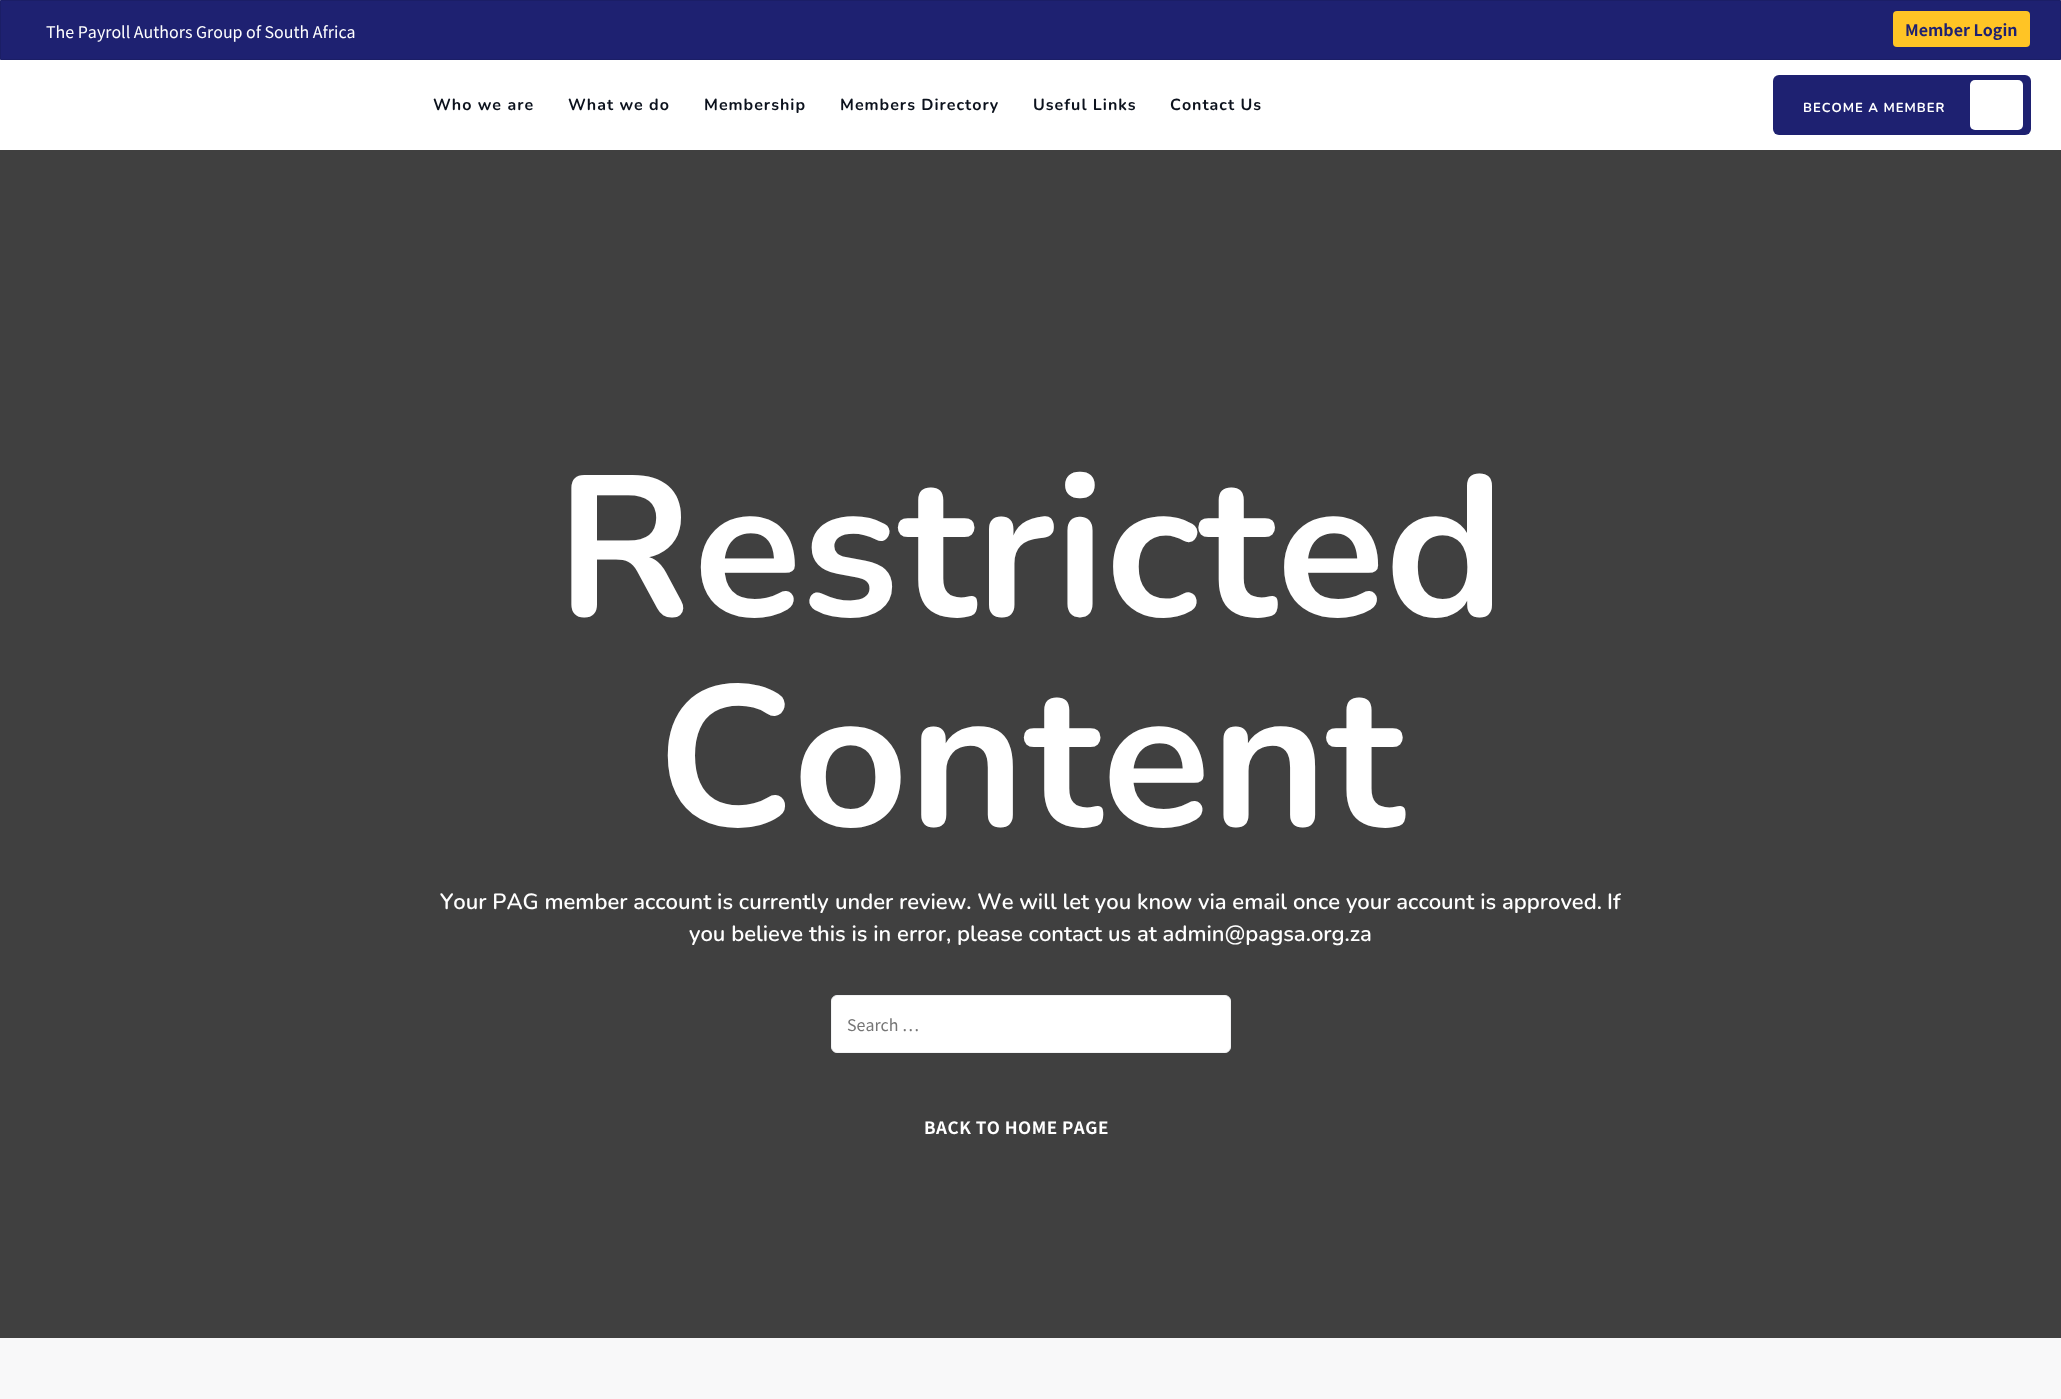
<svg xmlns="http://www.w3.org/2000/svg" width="2061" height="1399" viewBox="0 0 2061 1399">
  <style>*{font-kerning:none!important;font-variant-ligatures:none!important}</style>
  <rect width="100%" height="100%" fill="#fff"/>
  <path d="M0.5 0.5h2060v59H0.5z" fill="#1e2171" stroke="#1b1e66"/>
  <rect x="1893" y="11" width="137" height="36" rx="4" fill="#ffc425"/>
  <rect x="1773" y="75" width="258" height="60" rx="6" fill="#1e2171"/>
  <rect x="1970" y="80" width="53" height="50" rx="5" fill="#fff"/>
  <path d="M0 150h2061v1188H0z" fill="#404040"/>
  <rect x="831.5" y="995.5" width="399" height="57" rx="5.5" fill="#fff" stroke="#f2f3f4"/>
  <path d="M0 1338h2061v61H0z" fill="#f8f8f9"/>
  <text x="46" y="38" font-family="Noto Sans JP" font-size="16" fill="#fff">The Payroll Authors Group of South Africa</text>
  <text x="1905" y="36" font-family="Noto Sans JP" font-size="16" font-weight="bold" fill="#1e2171">Member Login</text>
  <g font-family="Nunito" font-size="16" font-weight="bold" letter-spacing="1" fill="#0c121d">
    <text x="433" y="110">Who we are</text>
    <text x="568" y="110">What we do</text>
    <text x="704" y="110">Membership</text>
    <text x="840" y="110">Members Directory</text>
    <text x="1033" y="110">Useful Links</text>
    <text x="1170" y="110">Contact Us</text>
  </g>
  <text x="1803" y="112" font-family="Nunito" font-size="13" font-weight="bold" letter-spacing="1" fill="#fff">BECOME A MEMBER</text>
  <g font-family="Nunito" font-size="200" font-weight="bold" fill="#fff">
    <text x="556" y="616">Restricted</text>
    <text x="657" y="826">Content</text>
  </g>
  <g font-family="Nunito" font-size="22" font-weight="600" fill="#fff">
    <text x="440" y="909">Your PAG member account is currently</text>
    <text x="835" y="909">under review. We will let you know via email once your account is approved.</text>
    <text x="1607" y="909">If</text>
    <text x="689" y="941">you believe this is in error, please contact us at admin@pagsa.org.za</text>
  </g>
  <text x="847" y="1031" font-family="Noto Sans JP" font-size="16" fill="#757575">Search …</text>
  <text x="924" y="1134" font-family="Noto Sans JP" font-size="17" font-weight="bold" letter-spacing="0.5" fill="#fff">BACK TO HOME PAGE</text>
</svg>
